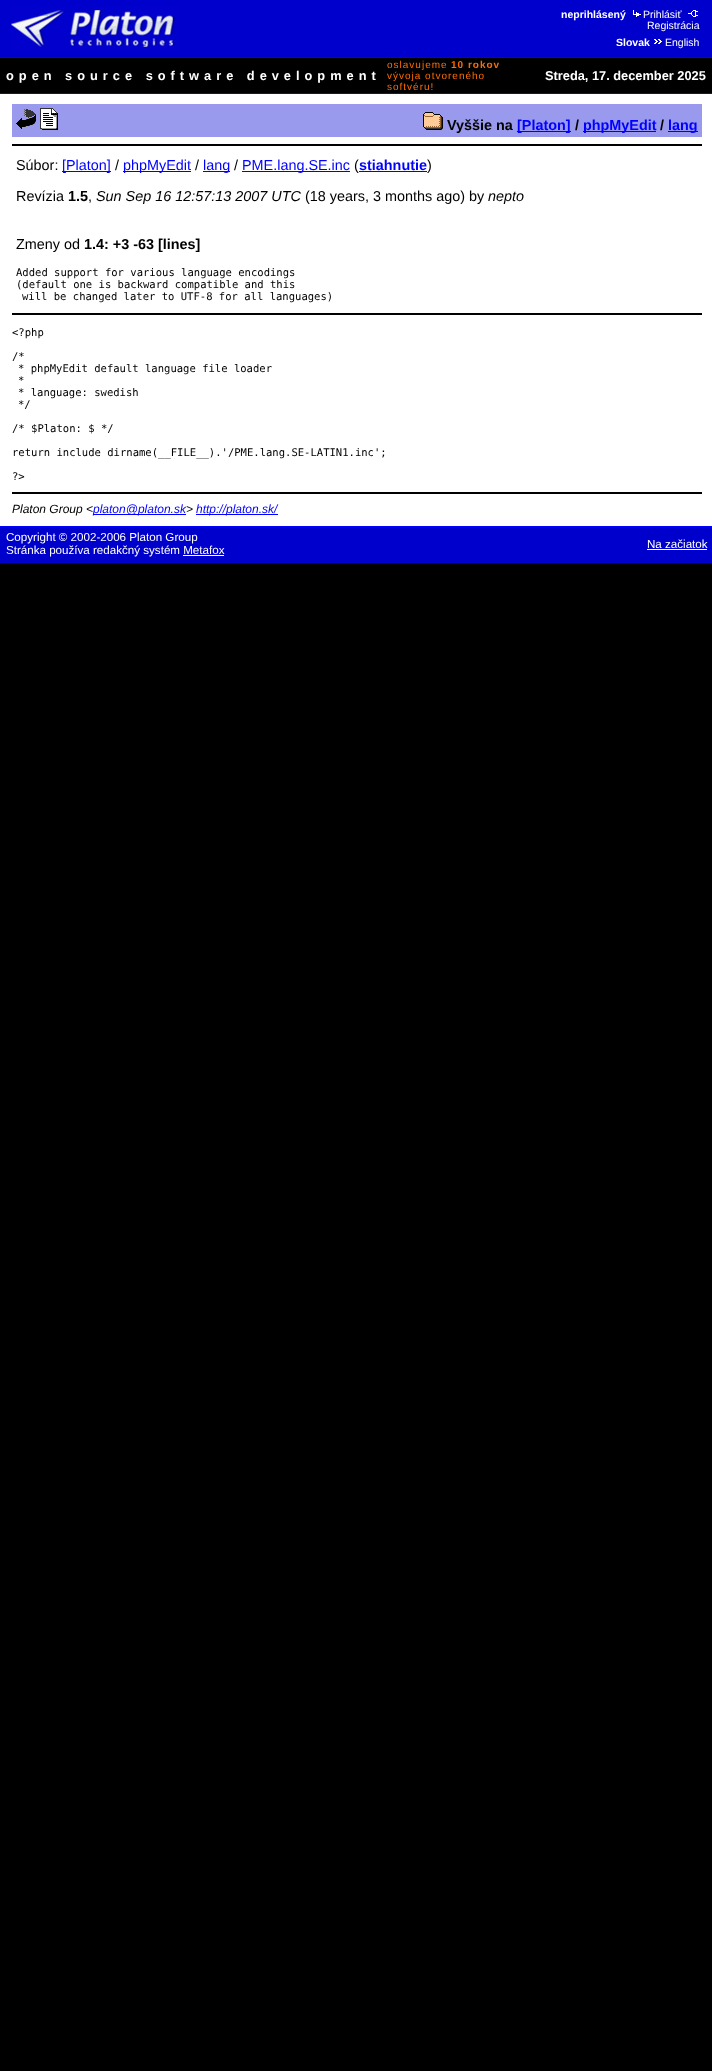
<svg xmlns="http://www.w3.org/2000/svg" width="712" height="2071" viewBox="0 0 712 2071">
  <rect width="100%" height="100%" fill="#000"/>
  <path d="M0 0h712v57H0z" fill="#00c"/>
  <image x="11" y="6" width="168" height="45" href="img/1.png"/>
  <image x="633" y="10" width="8" height="7" href="img/2.png"/>
  <image x="688" y="10" width="10" height="7" href="img/3.png"/>
  <image x="654" y="39" width="8" height="5" href="img/4.png"/>
  <path d="M0 57h712v1H0z" fill="#00f"/>
  <path d="M0 93h712v1H0z" fill="#00f"/>
  <path d="M0 94h712v432H0z" fill="#fff"/>
  <path d="M12 104h690v33H12z" fill="#99e"/>
  <image x="16" y="109" width="20" height="20" href="img/5.png"/>
  <image x="40" y="108" width="18" height="22" href="img/6.png"/>
  <image x="423" y="112" width="20" height="18" href="img/7.png"/>
  <path d="M517 131h54v1H517z" fill="#00f"/>
  <path d="M583 131h73v1H583z" fill="#00f"/>
  <path d="M668 131h30v1H668z" fill="#00f"/>
  <path d="M12 144h690v2H12z" fill="#000"/>
  <path d="M62 171h49v1H62z" fill="#00f"/>
  <path d="M123 171h68v1H123z" fill="#00f"/>
  <path d="M203 171h27v1H203z" fill="#00f"/>
  <path d="M242 171h108v1H242z" fill="#00f"/>
  <path d="M12 313h690v2H12z" fill="#000"/>
  <path d="M12 492h690v2H12z" fill="#000"/>
  <path d="M93 514h93v1H93z" fill="#00f"/>
  <path d="M196 514h82v1H196z" fill="#00f"/>
  <path d="M0 526h712v1H0z" fill="#00f"/>
  <path d="M0 527h712v36H0z" fill="#00c"/>
  <path d="M183 555h41v1H183z" fill="#fff"/>
  <path d="M647 549h60v1H647z" fill="#fff"/>
  <text x="561" y="18" font-family="Liberation Sans" font-size="10.5" font-weight="bold" fill="#fff">neprihlásený</text>
  <g font-family="Liberation Sans" font-size="10.5" fill="#fff">
    <text x="643" y="18">Prihlásiť</text>
    <text x="647" y="29">Registrácia</text>
  </g>
  <path d="M665 18h15v1H665z" fill="#00c"/>
  <text x="616" y="46" font-family="Liberation Sans" font-size="10.5" font-weight="bold" fill="#fff">Slovak</text>
  <text x="665" y="46" font-family="Liberation Sans" font-size="10.5" fill="#fff">English</text>
  <text x="6" y="80" font-family="Liberation Sans" font-size="12.8" font-weight="bold" letter-spacing="5" fill="#fff">open source software development</text>
  <text x="387" y="68" font-family="Liberation Sans" font-size="10" letter-spacing="1" fill="#ff6c00">oslavujeme</text>
  <text x="451" y="68" font-family="Liberation Sans" font-size="10" font-weight="bold" letter-spacing="1" fill="#ff6c00">10 rokov</text>
  <g font-family="Liberation Sans" font-size="10" letter-spacing="1" fill="#ff6c00">
    <text x="387" y="79">vývoja otvoreného</text>
    <text x="387" y="90">softvéru!</text>
  </g>
  <text x="545" y="80" font-family="Liberation Sans" font-size="12.8" font-weight="bold" fill="#fff">Streda, 17. december 2025</text>
  <text x="447" y="130" font-family="Liberation Sans" font-size="14.4" font-weight="bold" fill="#000">Vyššie na</text>
  <text x="517" y="130" font-family="Liberation Sans" font-size="14.4" font-weight="bold" fill="#00f">[Platon]</text>
  <text x="575" y="130" font-family="Liberation Sans" font-size="14.4" font-weight="bold" fill="#000">/</text>
  <text x="583" y="130" font-family="Liberation Sans" font-size="14.4" font-weight="bold" fill="#00f">phpMyEdit</text>
  <text x="660" y="130" font-family="Liberation Sans" font-size="14.4" font-weight="bold" fill="#000">/</text>
  <text x="668" y="130" font-family="Liberation Sans" font-size="14.4" font-weight="bold" fill="#00f">lang</text>
  <text x="16" y="170" font-family="Liberation Sans" font-size="14.4" fill="#000">Súbor:</text>
  <text x="62" y="170" font-family="Liberation Sans" font-size="14.4" fill="#00f">[Platon]</text>
  <text x="115" y="170" font-family="Liberation Sans" font-size="14.4" fill="#000">/</text>
  <text x="123" y="170" font-family="Liberation Sans" font-size="14.4" fill="#00f">phpMyEdit</text>
  <text x="195" y="170" font-family="Liberation Sans" font-size="14.4" fill="#000">/</text>
  <text x="203" y="170" font-family="Liberation Sans" font-size="14.4" fill="#00f">lang</text>
  <text x="234" y="170" font-family="Liberation Sans" font-size="14.4" fill="#000">/</text>
  <text x="242" y="170" font-family="Liberation Sans" font-size="14.4" fill="#00f">PME.lang.SE.inc</text>
  <text x="354" y="170" font-family="Liberation Sans" font-size="14.4" fill="#000">(</text>
  <text x="359" y="170" font-family="Liberation Sans" font-size="14.4" font-weight="bold" fill="#00f">stiahnutie</text>
  <path d="M359 171h68v1H359z" fill="#00f"/>
  <g font-family="Liberation Sans" font-size="14.4" fill="#000">
    <text x="427" y="170">)</text>
    <text x="16" y="201">Revízia</text>
  </g>
  <text x="68" y="201" font-family="Liberation Sans" font-size="14.4" font-weight="bold" fill="#000">1.5</text>
  <text x="88" y="201" font-family="Liberation Sans" font-size="14.4" fill="#000">,</text>
  <text x="96" y="201" font-family="Liberation Sans" font-size="14.4" font-style="italic" fill="#000">Sun Sep 16 12:57:13 2007 UTC</text>
  <text x="305" y="201" font-family="Liberation Sans" font-size="14.4" fill="#000">(18 years, 3 months ago) by</text>
  <text x="488" y="201" font-family="Liberation Sans" font-size="14.4" font-style="italic" fill="#000">nepto</text>
  <text x="16" y="249" font-family="Liberation Sans" font-size="14.4" fill="#000">Zmeny od</text>
  <text x="84" y="249" font-family="Liberation Sans" font-size="14.4" font-weight="bold" fill="#000">1.4: +3 -63 [lines]</text>
  <g font-family="DejaVu Sans Mono" font-size="10.55" fill="#000">
    <text x="16" y="276">Added support for various language encodings</text>
    <text x="16" y="288">(default one is backward compatible and this</text>
    <text x="22" y="300">will be changed later to UTF-8 for all languages)</text>
    <text x="12" y="336">&lt;?php</text>
    <text x="12" y="360">/*</text>
    <text x="18" y="372">* phpMyEdit default language file loader</text>
    <text x="18" y="384">*</text>
    <text x="18" y="396">* language: swedish</text>
    <text x="18" y="408">*/</text>
    <text x="12" y="432">/* $Platon: $ */</text>
    <text x="12" y="456">return include dirname(__FILE__).'/PME.lang.SE-LATIN1.inc';</text>
    <text x="12" y="480">?&gt;</text>
  </g>
  <text x="12" y="513" font-family="Liberation Sans" font-size="12" font-style="italic" fill="#000">Platon Group &lt;</text>
  <text x="93" y="513" font-family="Liberation Sans" font-size="12" font-style="italic" fill="#00f">platon@platon.sk</text>
  <text x="186" y="513" font-family="Liberation Sans" font-size="12" font-style="italic" fill="#000">&gt;</text>
  <text x="196" y="513" font-family="Liberation Sans" font-size="12" font-style="italic" fill="#00f">http://platon.sk/</text>
  <g font-family="Liberation Sans" font-size="11.6" fill="#fff">
    <text x="6" y="541">Copyright © 2002-2006 Platon Group</text>
    <text x="6" y="554">Stránka používa redakčný systém Metafox</text>
    <text x="647" y="548">Na začiatok</text>
  </g>
</svg>
